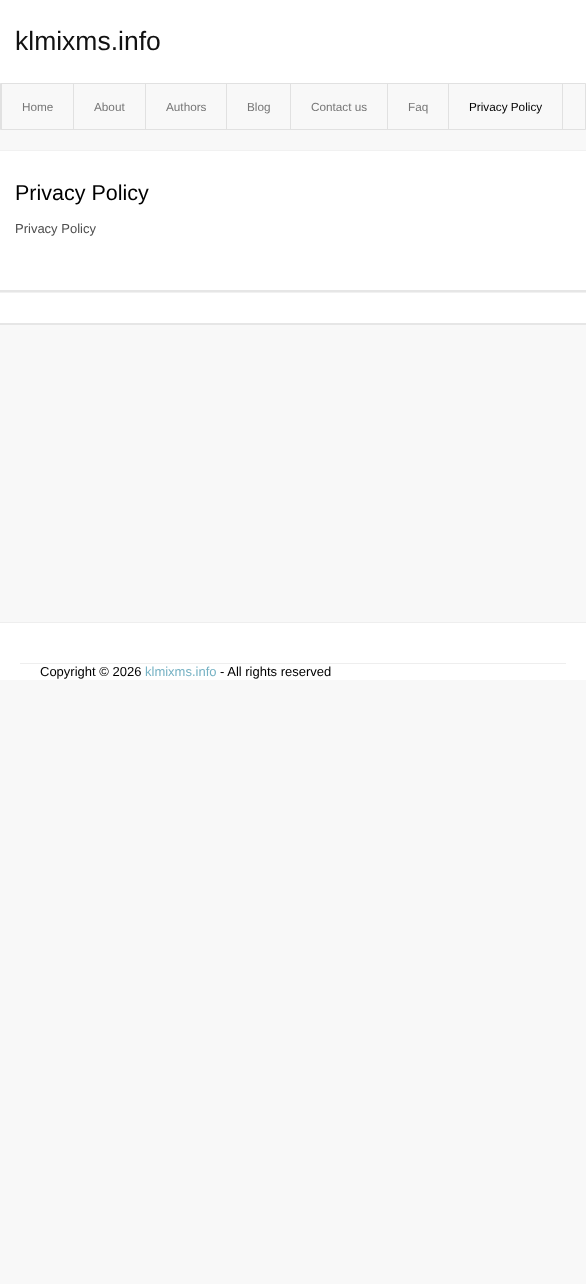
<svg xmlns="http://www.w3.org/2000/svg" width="586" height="1284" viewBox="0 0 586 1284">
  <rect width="100%" height="100%" fill="#f8f8f8"/>
  <path d="M0 0h586v83H0z" fill="#fff"/>
  <path d="M0.5 83.5h585v46H0.5z" fill="none" stroke="#e1e1e1"/>
  <path d="M1 84h1v46H1z" fill="#e1e1e1"/>
  <path d="M73 84h1v46H73z" fill="#e1e1e1"/>
  <path d="M145 84h1v46H145z" fill="#e1e1e1"/>
  <path d="M226 84h1v46H226z" fill="#e1e1e1"/>
  <path d="M290 84h1v46H290z" fill="#e1e1e1"/>
  <path d="M387 84h1v46H387z" fill="#e1e1e1"/>
  <path d="M448 84h1v46H448z" fill="#e1e1e1"/>
  <path d="M562 84h1v46H562z" fill="#e1e1e1"/>
  <path d="M0 151h586v139H0z" fill="#fff"/>
  <path d="M0 150h586v1H0z" fill="#f1f1f1"/>
  <path d="M0 290h586v2H0z" fill="#e6e6e6"/>
  <path d="M0 293h586v30H0z" fill="#fff"/>
  <path d="M0 292h586v1H0z" fill="#f1f1f1"/>
  <path d="M0 323h586v2H0z" fill="#e6e6e6"/>
  <path d="M0 623h586v57H0z" fill="#fff"/>
  <path d="M0 622h586v1H0z" fill="#eee"/>
  <path d="M20 663h546v1H20z" fill="#eee"/>
  <text x="15" y="50" font-family="Liberation Sans" font-size="26.5" fill="#111">klmixms.info</text>
  <g font-family="Liberation Sans" font-size="11.75" fill="#777">
    <text x="22" y="111">Home</text>
    <text x="94" y="111">About</text>
    <text x="166" y="111">Authors</text>
    <text x="247" y="111">Blog</text>
    <text x="311" y="111">Contact us</text>
    <text x="408" y="111">Faq</text>
  </g>
  <text x="469" y="111" font-family="Liberation Sans" font-size="11.75" fill="#000">Privacy Policy</text>
  <text x="15" y="200" font-family="Liberation Sans" font-size="21.5" fill="#000">Privacy Policy</text>
  <text x="15" y="233" font-family="Liberation Sans" font-size="13" fill="#4f4f4f">Privacy Policy</text>
  <text x="40" y="676" font-family="Liberation Sans" font-size="13" fill="#000">Copyright © 2026</text>
  <text x="145" y="676" font-family="Liberation Sans" font-size="13" fill="#76b2c4">klmixms.info</text>
  <text x="220" y="676" font-family="Liberation Sans" font-size="13" fill="#000">- All rights reserved</text>
</svg>
